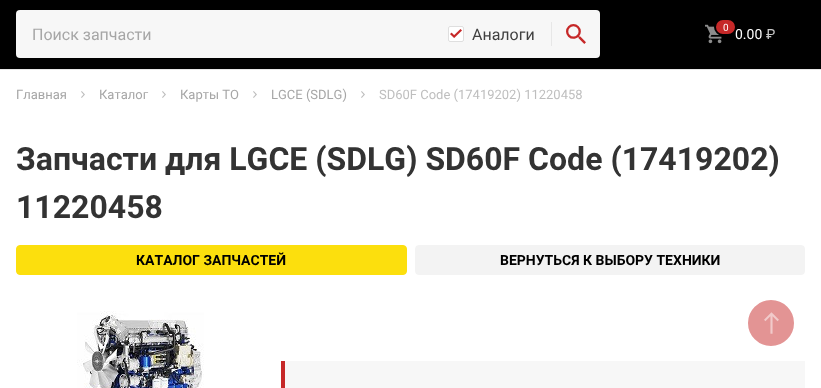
<svg xmlns="http://www.w3.org/2000/svg" width="821" height="388" viewBox="0 0 821 388">
  <rect width="100%" height="100%" fill="#fff"/>
  <path d="M0 0h821v69H0z" fill="#000"/>
  <path d="M0 69h821v1H0z" fill="#e7e7e7"/>
  <rect x="16" y="10" width="584" height="48" rx="4" fill="#f7f7f7"/>
  <path d="M551 22h1v24H551z" fill="#e7e7e7"/>
  <rect x="448" y="26" width="16" height="16" rx="2" fill="#fff"/>
  <image x="450" y="29" width="12" height="9" href="img/1.png"/>
  <rect x="448.5" y="26.5" width="15" height="15" rx="1.5" fill="none" stroke="#dfdfdf"/>
  <image x="566" y="24" width="20" height="20" href="img/2.png"/>
  <image x="705" y="24" width="17" height="20" href="img/3.png"/>
  <image x="81" y="91" width="4" height="7" href="img/4.png"/>
  <image x="162" y="91" width="4" height="7" href="img/4.png"/>
  <image x="253" y="91" width="4" height="7" href="img/5.png"/>
  <image x="361" y="91" width="4" height="7" href="img/4.png"/>
  <rect x="16.5" y="245.5" width="390" height="29" rx="3.5" fill="#fcdf0d" stroke="#fcdf0d"/>
  <rect x="415.5" y="245.5" width="389" height="29" rx="3.5" fill="#f3f3f3" stroke="#f3f3f3"/>
  <image x="77" y="311" width="127" height="77" href="img/6.png"/>
  <path d="M285 361h520v27H285z" fill="#f7f7f7"/>
  <path d="M281 361h4v27H281z" fill="#c62828"/>
  <circle cx="771" cy="323" r="24" fill="#e39494" stroke="#fff" stroke-width="2"/>
  <image x="764" y="312" width="15" height="22" href="img/7.png"/>
  <text x="32" y="40" font-family="Roboto" font-size="16" fill="#a6a6a6">Поиск запчасти</text>
  <text x="472" y="40" font-family="Roboto" font-size="16" fill="#404040">Аналоги</text>
  <text x="735" y="39" font-family="Roboto" font-size="14" fill="#fff">0.00</text>
  <rect x="715" y="19" width="21" height="16" rx="8" fill="#c62828" stroke="#000" stroke-width="2"/>
  <text x="723" y="31" font-family="Roboto" font-size="10" fill="#fff">0</text>
  <text x="766" y="39" font-family="Roboto" font-size="14" fill="#c8c8c8">₽</text>
  <g font-family="Roboto" font-size="13" fill="#a6a6a6">
    <text x="16" y="99">Главная</text>
    <text x="99" y="99">Каталог</text>
    <text x="180" y="99">Карты ТО</text>
    <text x="271" y="99">LGCE (SDLG)</text>
  </g>
  <text x="379" y="99" font-family="Roboto" font-size="13" fill="#bebebe">SD60F Code (17419202) 11220458</text>
  <g font-family="Roboto" font-size="32" font-weight="bold" fill="#333">
    <text x="16" y="170">Запчасти для LGCE (SDLG) SD60F Code (17419202)</text>
    <text x="16" y="218">11220458</text>
  </g>
  <g font-family="Roboto" font-size="14" font-weight="bold" fill="#000">
    <text x="136" y="265">КАТАЛОГ ЗАПЧАСТЕЙ</text>
    <text x="500" y="265">ВЕРНУТЬСЯ К ВЫБОРУ ТЕХНИКИ</text>
  </g>
</svg>
